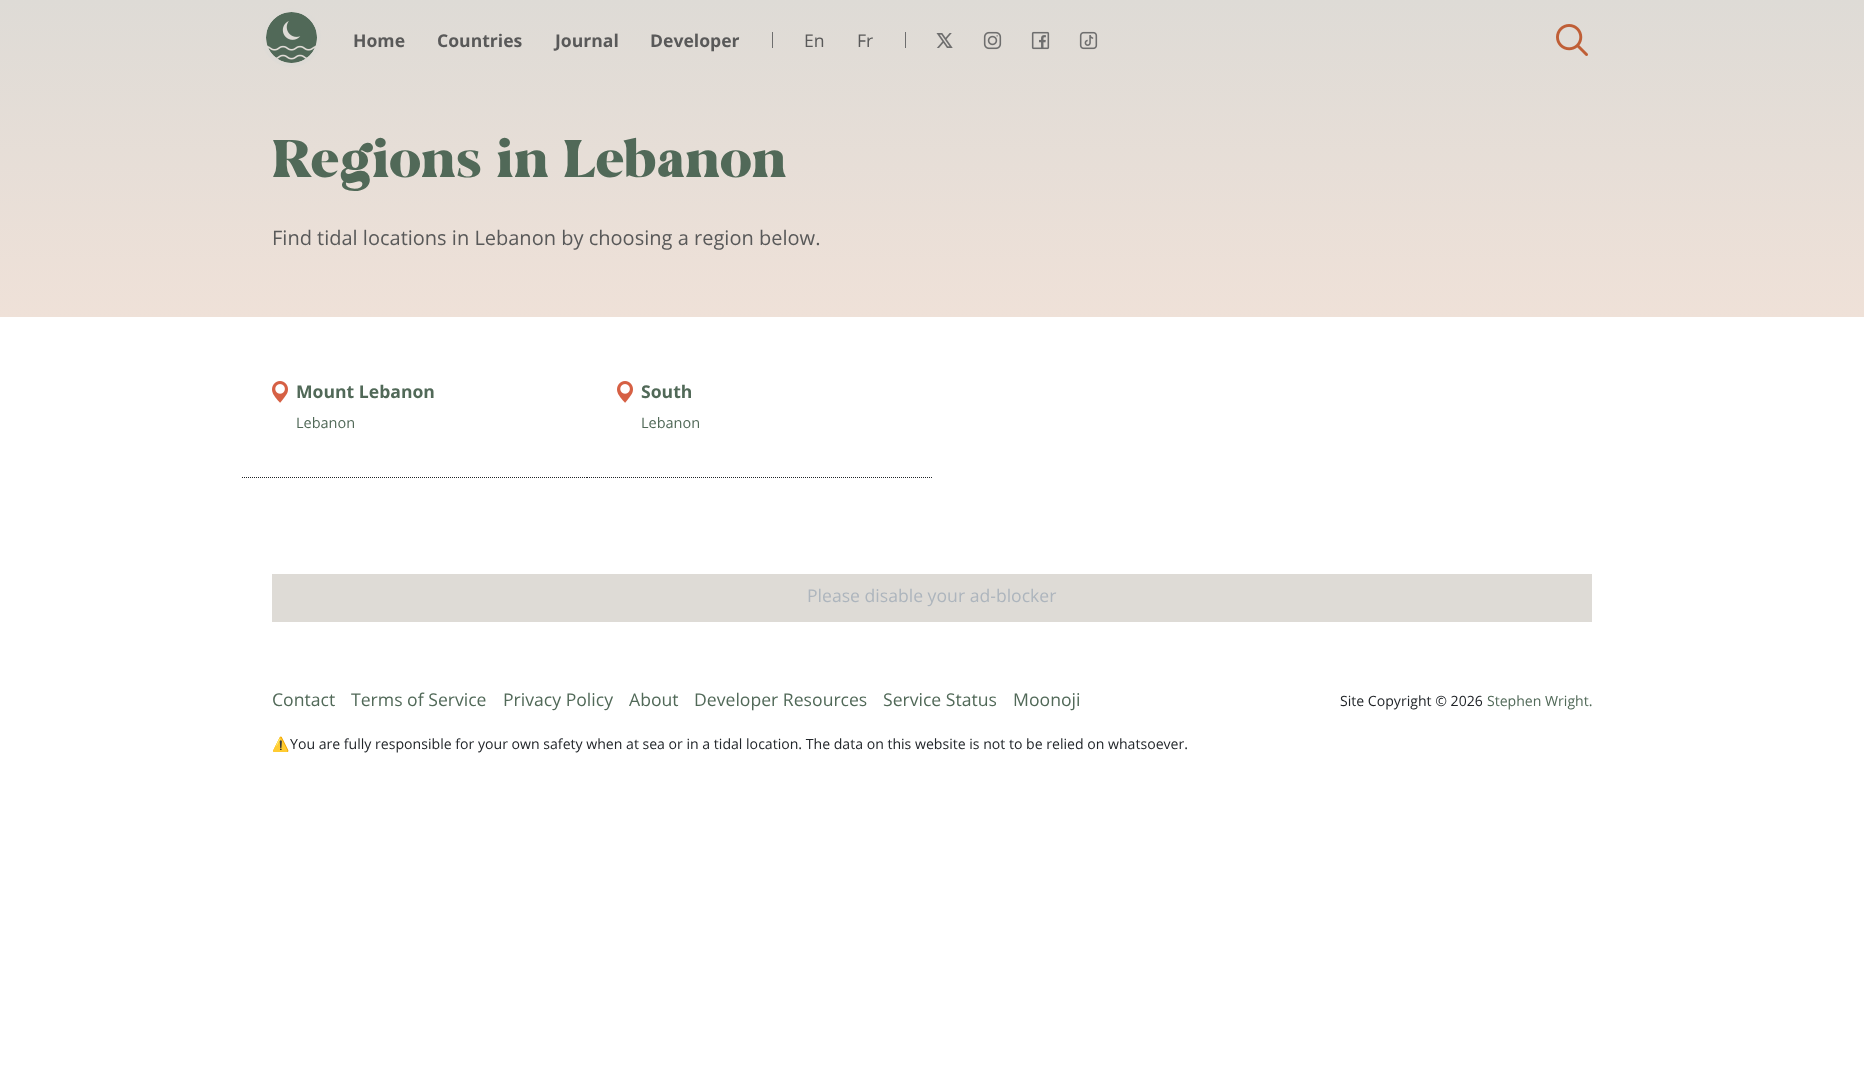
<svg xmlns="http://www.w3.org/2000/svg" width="1864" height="1084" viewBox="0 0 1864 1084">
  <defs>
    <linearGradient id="g1" gradientUnits="userSpaceOnUse" x1="932" y1="0" x2="932" y2="317"><stop offset="0" stop-color="#dedbd6"/><stop offset="1" stop-color="#efe1d8"/></linearGradient>
  </defs>
  <rect width="100%" height="100%" fill="#fff"/>
  <path d="M0 0h1864v317H0z" fill="url(#g1)"/>
  <image x="266" y="12" width="51" height="51" href="img/1.png"/>
  <circle cx="291.5" cy="37.5" r="27.5" fill="none" stroke="#dedbd6" stroke-width="4"/>
  <path d="M772 32h1v16H772z" fill="#6e6e6e"/>
  <path d="M905 32h1v16H905z" fill="#6e6e6e"/>
  <image x="936" y="33" width="17" height="15" href="img/2.png"/>
  <image x="983" y="31" width="19" height="19" href="img/3.png"/>
  <image x="1031" y="31" width="19" height="19" href="img/4.png"/>
  <image x="1079" y="31" width="19" height="19" href="img/5.png"/>
  <image x="1556" y="24" width="32" height="32" href="img/6.png"/>
  <path d="M242 477.5H587" fill="none" stroke="#212529" stroke-dasharray="1 1"/>
  <image x="272" y="381" width="16" height="22" href="img/7.png"/>
  <path d="M587 477.5H932" fill="none" stroke="#212529" stroke-dasharray="1 1"/>
  <image x="617" y="381" width="16" height="22" href="img/7.png"/>
  <path d="M272 574h1320v48H272z" fill="#dedbd6"/>
  <g font-family="Open Sans" font-size="17.6" font-weight="bold" fill="#595959">
    <text x="353" y="47">Home</text>
    <text x="437" y="47">Countries</text>
    <text x="555" y="47">Journal</text>
    <text x="650" y="47">Developer</text>
  </g>
  <g font-family="Open Sans" font-size="17.6" fill="#595959">
    <text x="804" y="47">En</text>
    <text x="857" y="47">Fr</text>
  </g>
  <text x="272" y="177" word-spacing="-6" font-family="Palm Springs" font-size="52.75" fill="#516958">Regions in Lebanon</text>
  <text x="272" y="245" font-family="Open Sans" font-size="20" fill="#595959">Find tidal locations in Lebanon by choosing a region below.</text>
  <text x="296" y="398" font-family="Open Sans" font-size="17.6" font-weight="bold" fill="#516958">Mount Lebanon</text>
  <text x="296" y="428" font-family="Open Sans" font-size="14.5" fill="#516958">Lebanon</text>
  <text x="641" y="398" font-family="Open Sans" font-size="17.6" font-weight="bold" fill="#516958">South</text>
  <text x="641" y="428" font-family="Open Sans" font-size="14.5" fill="#516958">Lebanon</text>
  <text x="807" y="602" font-family="Open Sans" font-size="17.6" fill="#adb5bd">Please disable your ad-blocker</text>
  <g font-family="Open Sans" font-size="17.6" fill="#516958">
    <text x="272" y="706">Contact</text>
    <text x="351" y="706">Terms of Service</text>
    <text x="503" y="706">Privacy Policy</text>
    <text x="629" y="706">About</text>
    <text x="694" y="706">Developer Resources</text>
    <text x="883" y="706">Service Status</text>
    <text x="1013" y="706">Moonoji</text>
  </g>
  <text x="1340" y="706" font-family="Open Sans" font-size="14.08" fill="#212529">Site Copyright © 2026</text>
  <text x="1487" y="706" font-family="Open Sans" font-size="14.08" fill="#516958">Stephen Wright.</text>
  <text x="272" y="749" font-family="Noto Color Emoji" font-size="14.08" fill="#212529">⚠️</text>
  <text x="290" y="749" font-family="Open Sans" font-size="14.08" fill="#212529">You are fully responsible for your own safety when at sea or in a tidal location. The data on this website is not to be relied on whatsoever.</text>
</svg>
